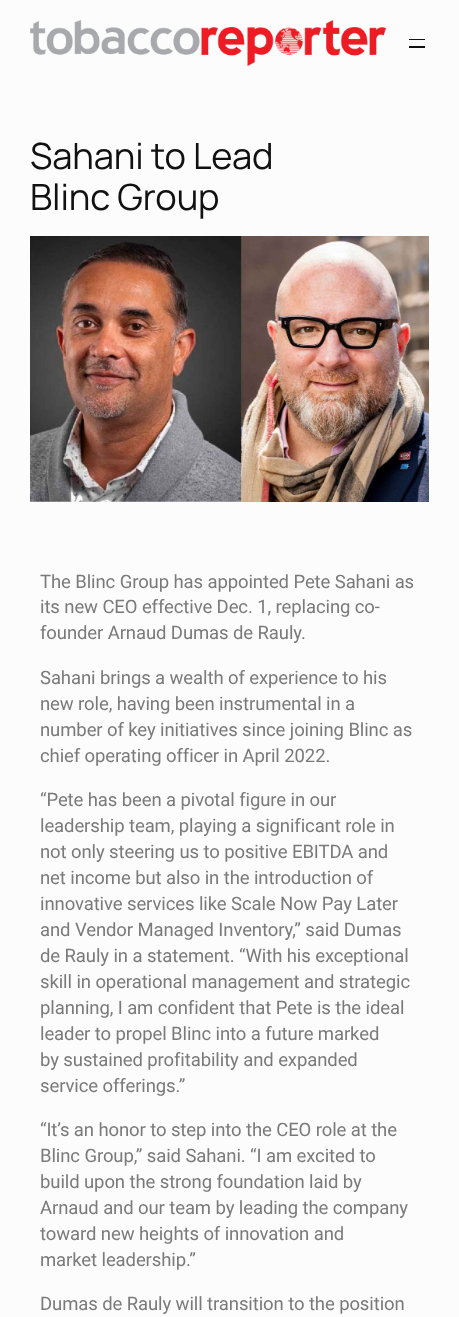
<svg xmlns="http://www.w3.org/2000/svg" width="459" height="1317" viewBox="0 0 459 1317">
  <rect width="100%" height="100%" fill="#fcfcfc"/>
  <image x="30" y="20" width="356" height="46" href="img/1.png"/>
  <path d="M409 39h16v1H409z" fill="#111"/>
  <path d="M409 46h16v2H409z" fill="#111"/>
  <image x="30" y="236" width="399" height="266" href="img/2.png"/>
  <g font-family="Manrope" font-size="36.25" letter-spacing="-0.1" fill="#111">
    <text x="30" y="169">Sahani to Lead</text>
    <text x="30" y="210">Blinc Group</text>
  </g>
  <g font-family="Roboto" font-size="18.5" letter-spacing="-0.1" fill="#7a7a7a">
    <text x="40" y="588">The Blinc Group has appointed Pete Sahani as</text>
    <text x="40" y="613">its new CEO effective Dec. 1, replacing co-</text>
    <text x="40" y="639">founder Arnaud Dumas de Rauly.</text>
    <text x="40" y="684">Sahani brings a wealth of experience to his</text>
    <text x="40" y="710">new role, having been instrumental in a</text>
    <text x="40" y="736">number of key initiatives since joining Blinc as</text>
    <text x="40" y="762">chief operating officer in April 2022.</text>
    <text x="40" y="806">“Pete has been a pivotal figure in our</text>
    <text x="40" y="832">leadership team, playing a significant role in</text>
    <text x="40" y="858">not only steering us to positive EBITDA and</text>
    <text x="40" y="884">net income but also in the introduction of</text>
    <text x="40" y="910">innovative services like Scale Now Pay Later</text>
    <text x="40" y="936">and Vendor Managed Inventory,” said Dumas</text>
    <text x="40" y="962">de Rauly in a statement. “With his exceptional</text>
    <text x="40" y="988">skill in operational management and strategic</text>
    <text x="40" y="1014">planning, I am confident that Pete is the ideal</text>
    <text x="40" y="1040">leader to propel Blinc into a future marked</text>
    <text x="40" y="1066">by sustained profitability and expanded</text>
    <text x="40" y="1092">service offerings.”</text>
    <text x="40" y="1136">“It’s an honor to step into the CEO role at the</text>
    <text x="40" y="1162">Blinc Group,” said Sahani. “I am excited to</text>
    <text x="40" y="1188">build upon the strong foundation laid by</text>
    <text x="40" y="1214">Arnaud and our team by leading the company</text>
    <text x="40" y="1240">toward new heights of innovation and</text>
    <text x="40" y="1266">market leadership.”</text>
    <text x="40" y="1310">Dumas de Rauly will transition to the position</text>
  </g>
</svg>
